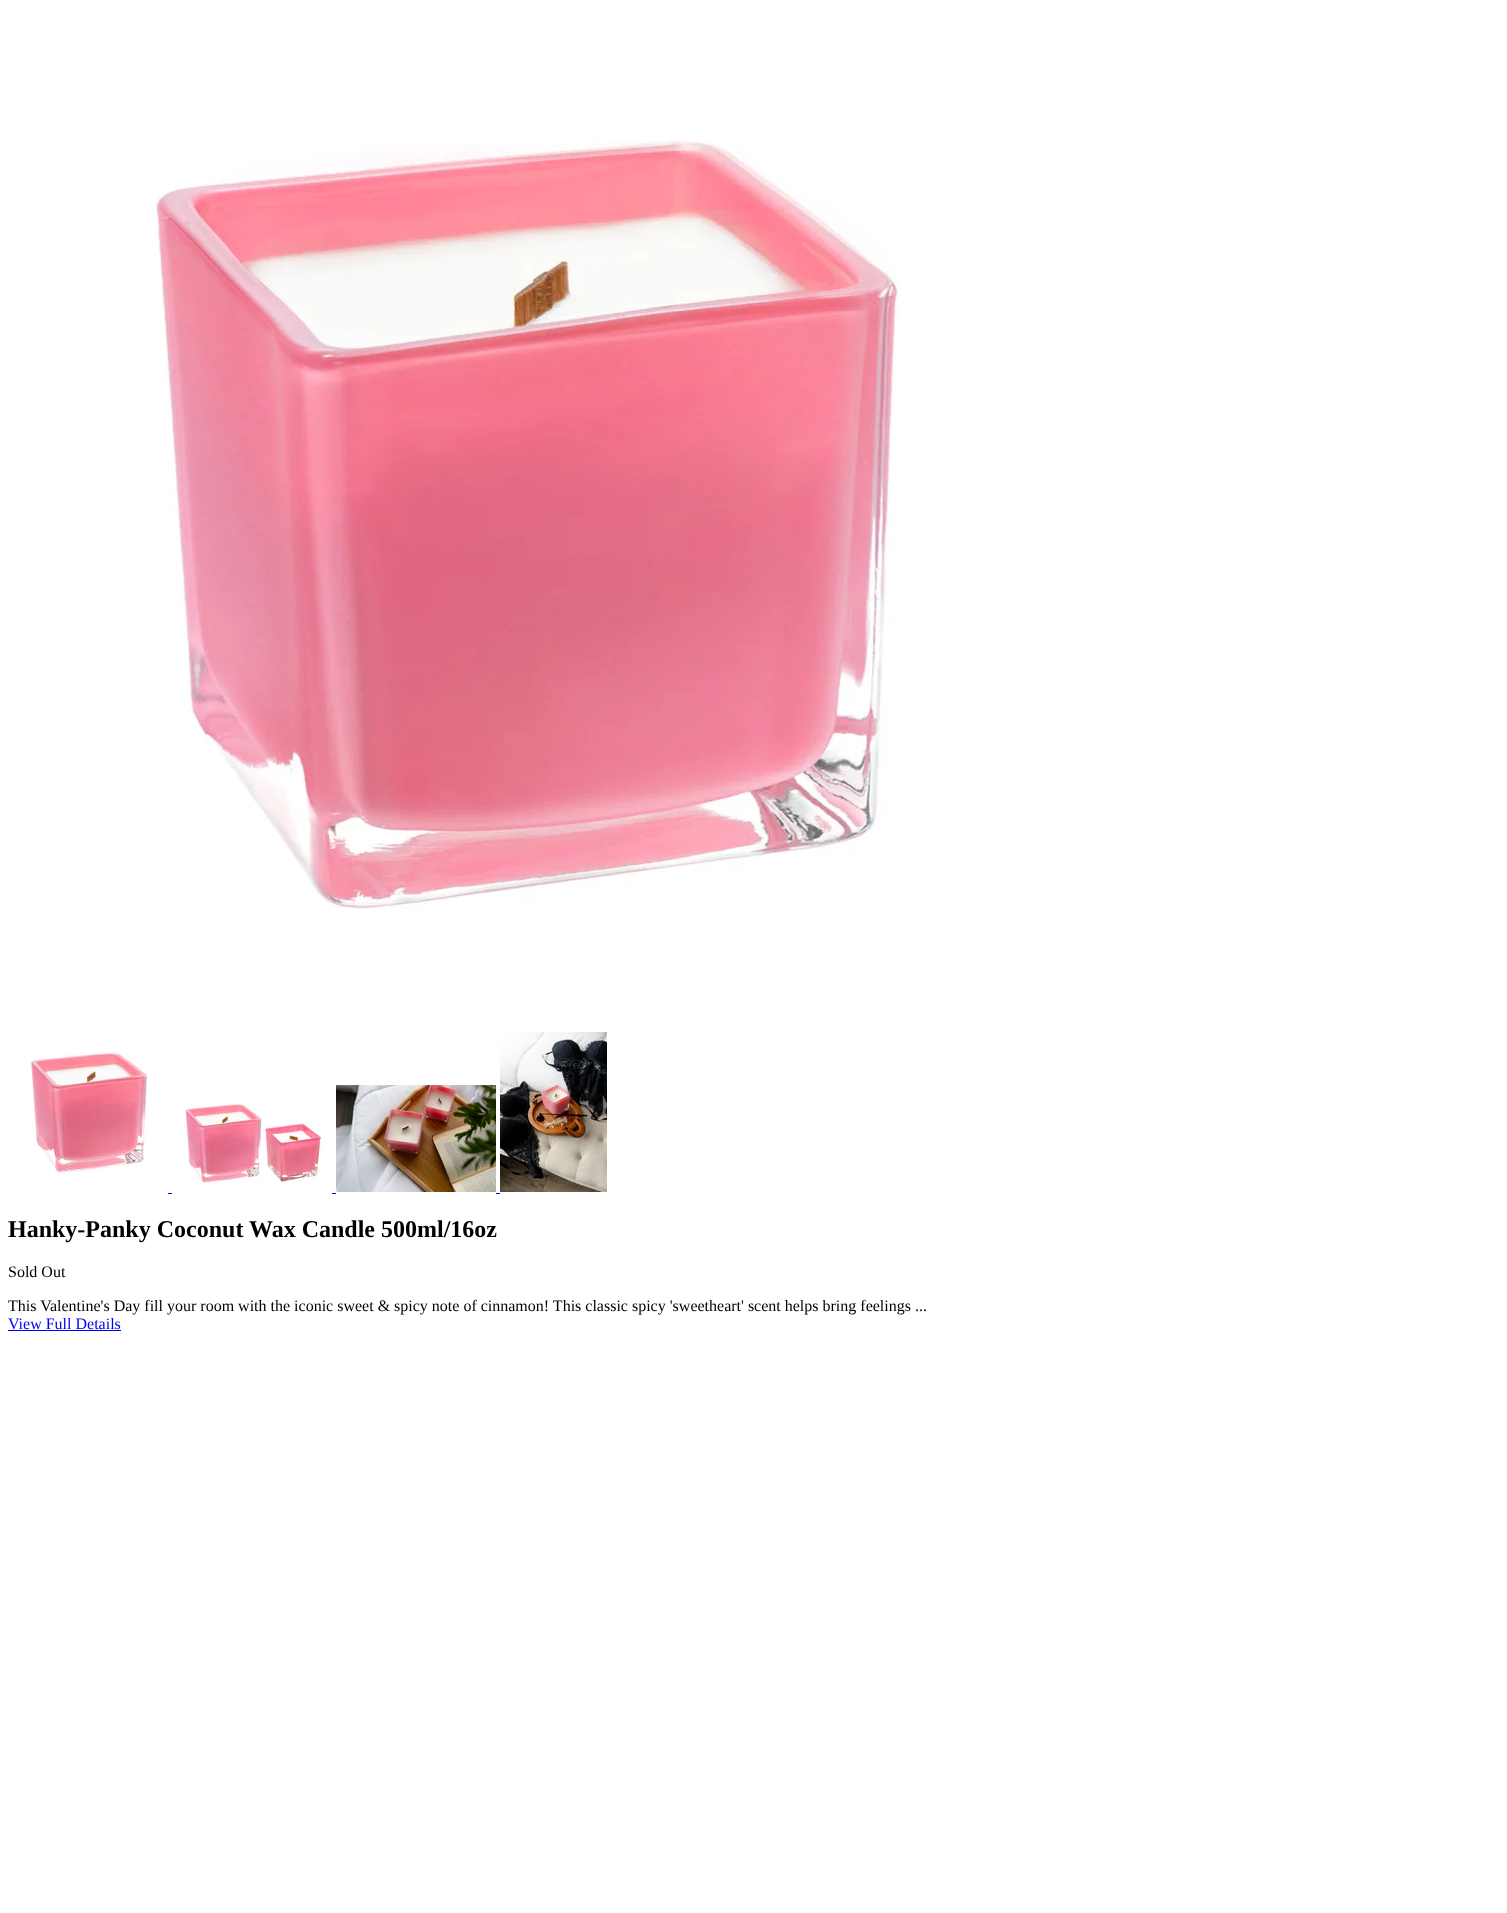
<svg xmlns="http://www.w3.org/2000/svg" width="1507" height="1913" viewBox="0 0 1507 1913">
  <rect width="100%" height="100%" fill="#fff"/>
  <image x="156" y="140" width="744" height="769" href="img/1.png"/>
  <image x="24" y="1052" width="124" height="122" href="img/2.png"/>
  <image x="180" y="1101" width="144" height="84" href="img/3.png"/>
  <image x="336" y="1085" width="160" height="107" href="img/4.png"/>
  <image x="500" y="1032" width="107" height="160" href="img/5.png"/>
  <path d="M168 1193h4v1H168z" fill="#00e"/>
  <path d="M332 1193h4v1H332z" fill="#00e"/>
  <path d="M496 1193h4v1H496z" fill="#00e"/>
  <path d="M8 1330h113v1H8z" fill="#00e"/>
  <text x="8" y="1237" font-family="Liberation Serif" font-size="24" font-weight="bold" fill="#000">Hanky-Panky Coconut Wax Candle 500ml/16oz</text>
  <g font-family="Liberation Serif" font-size="16" fill="#000">
    <text x="8" y="1277">Sold Out</text>
    <text x="8" y="1311">This Valentine's Day fill your room with the iconic sweet &amp; spicy note of cinnamon! This classic spicy 'sweetheart' scent helps bring feelings ...</text>
  </g>
  <text x="8" y="1329" font-family="Liberation Serif" font-size="16" fill="#00e">View Full Details</text>
</svg>
